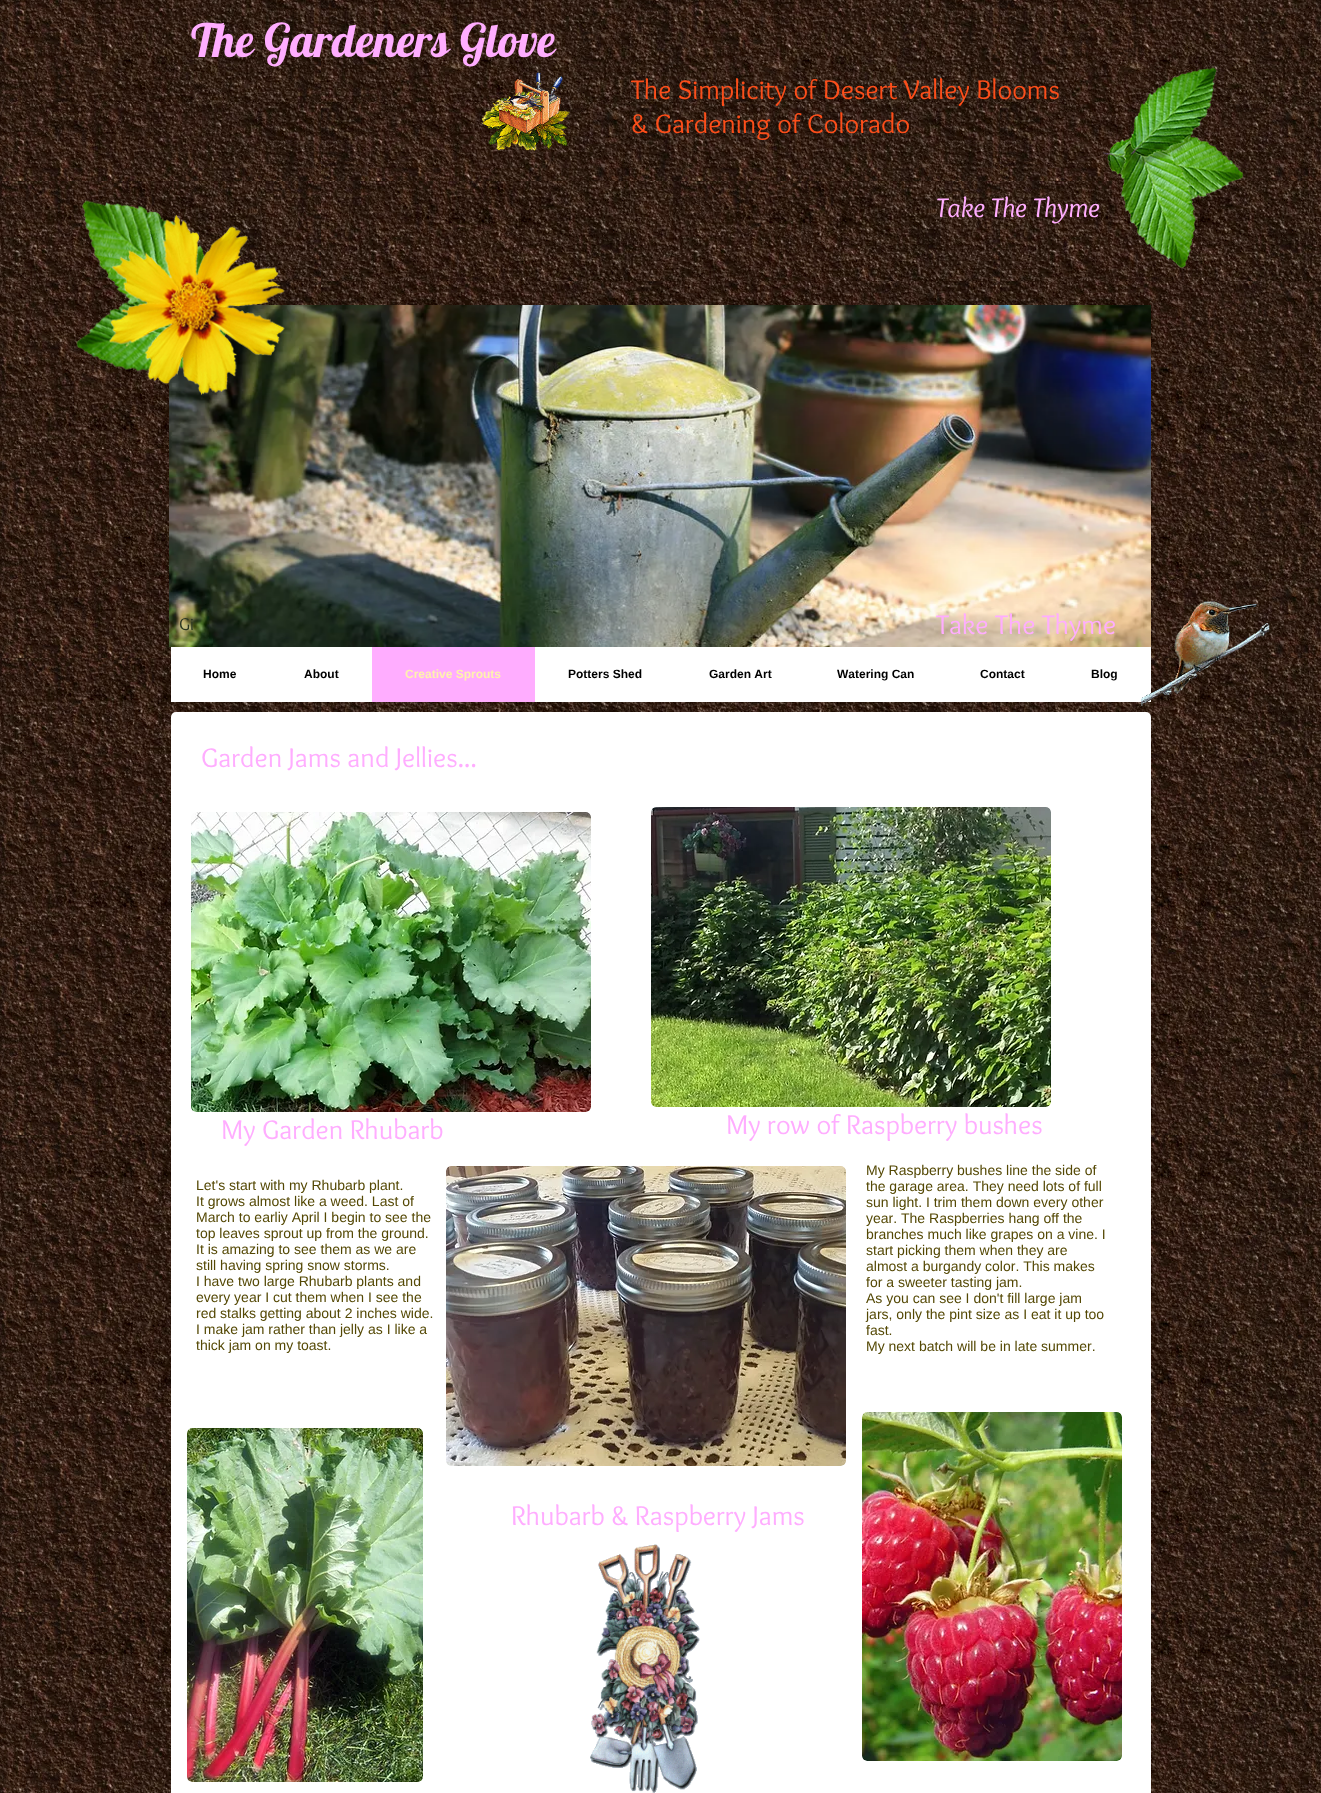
<svg xmlns="http://www.w3.org/2000/svg" width="1321" height="1793" viewBox="0 0 1321 1793">
  <style>*{font-kerning:none!important;font-variant-ligatures:none!important}</style>
  <rect width="100%" height="100%" fill="#fff"/>
  <image x="0" y="0" width="1321" height="1793" href="img/1.png"/>
  <image x="481" y="72" width="89" height="79" href="img/2.png"/>
  <image x="1103" y="67" width="141" height="203" href="img/3.png"/>
  <image x="169" y="305" width="982" height="342" href="img/5.png"/>
  <image x="76" y="200" width="209" height="196" href="img/4.png"/>
  <path d="M171 647h980v55H171z" fill="#fff"/>
  <path d="M372 647h163v55H372z" fill="#ffadff"/>
  <image x="1141" y="601" width="129" height="105" href="img/6.png"/>
  <rect x="171" y="712" width="980" height="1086" rx="5" fill="#fff"/>
  <image x="191" y="812" width="400" height="300" href="img/7.png"/>
  <image x="651" y="807" width="400" height="300" href="img/8.png"/>
  <image x="446" y="1166" width="400" height="300" href="img/9.png"/>
  <image x="187" y="1428" width="236" height="354" href="img/10.png"/>
  <image x="862" y="1412" width="260" height="349" href="img/11.png"/>
  <image x="590" y="1544" width="110" height="249" href="img/12.png"/>
  <text x="191" y="57" font-family="Lobster" font-size="46" fill="#ffadff">The Gardeners Glove</text>
  <g font-family="Overlock" font-size="28" fill="#fc4e1a">
    <text x="631" y="99">The Simplicity of Desert Valley Blooms</text>
    <text x="631" y="133">&amp; Gardening of Colorado</text>
  </g>
  <text x="936" y="217" font-family="Overlock" font-size="28" font-style="italic" fill="#ffadff">Take The Thyme</text>
  <text x="179" y="630" font-family="Overlock" font-size="18" fill="#2c3822">Gi</text>
  <g font-family="Liberation Sans" font-size="12" font-weight="bold" fill="#000">
    <text x="203" y="678">Home</text>
    <text x="304" y="678">About</text>
  </g>
  <text x="405" y="678" font-family="Liberation Sans" font-size="12" font-weight="bold" fill="#fef2ae">Creative Sprouts</text>
  <g font-family="Liberation Sans" font-size="12" font-weight="bold" fill="#000">
    <text x="568" y="678">Potters Shed</text>
    <text x="709" y="678">Garden Art</text>
    <text x="837" y="678">Watering Can</text>
    <text x="980" y="678">Contact</text>
    <text x="1091" y="678">Blog</text>
  </g>
  <g font-family="Overlock" font-size="28" fill="#ffadff">
    <text x="936" y="634">Take The Thyme</text>
    <text x="201" y="767">Garden Jams and Jellies...</text>
    <text x="221" y="1139">My Garden Rhubarb</text>
    <text x="726" y="1134">My row of Raspberry bushes</text>
  </g>
  <g font-family="Liberation Sans" font-size="14" fill="#544804">
    <text x="196" y="1190">Let's start with my Rhubarb plant.</text>
    <text x="196" y="1206">It grows almost like a weed. Last of</text>
    <text x="196" y="1222">March to earliy April I begin to see the</text>
    <text x="196" y="1238">top leaves sprout up from the ground.</text>
    <text x="196" y="1254">It is amazing to see them as we are</text>
    <text x="196" y="1270">still having spring snow storms.</text>
    <text x="196" y="1286">I have two large Rhubarb plants and</text>
    <text x="196" y="1302">every year I cut them when I see the</text>
    <text x="196" y="1318">red stalks getting about 2 inches wide.</text>
    <text x="196" y="1334">I make jam rather than jelly as I like a</text>
    <text x="196" y="1350">thick jam on my toast.</text>
    <text x="866" y="1175">My Raspberry bushes line the side of</text>
    <text x="866" y="1191">the garage area. They need lots of full</text>
    <text x="866" y="1207">sun light. I trim them down every other</text>
    <text x="866" y="1223">year. The Raspberries hang off the</text>
    <text x="866" y="1239">branches much like grapes on a vine. I</text>
    <text x="866" y="1255">start picking them when they are</text>
    <text x="866" y="1271">almost a burgandy color. This makes</text>
    <text x="866" y="1287">for a sweeter tasting jam.</text>
    <text x="866" y="1303">As you can see I don't fill large jam</text>
    <text x="866" y="1319">jars, only the pint size as I eat it up too</text>
    <text x="866" y="1335">fast.</text>
    <text x="866" y="1351">My next batch will be in late summer.</text>
  </g>
  <text x="511" y="1525" font-family="Overlock" font-size="28" fill="#ffadff">Rhubarb &amp; Raspberry Jams</text>
</svg>
